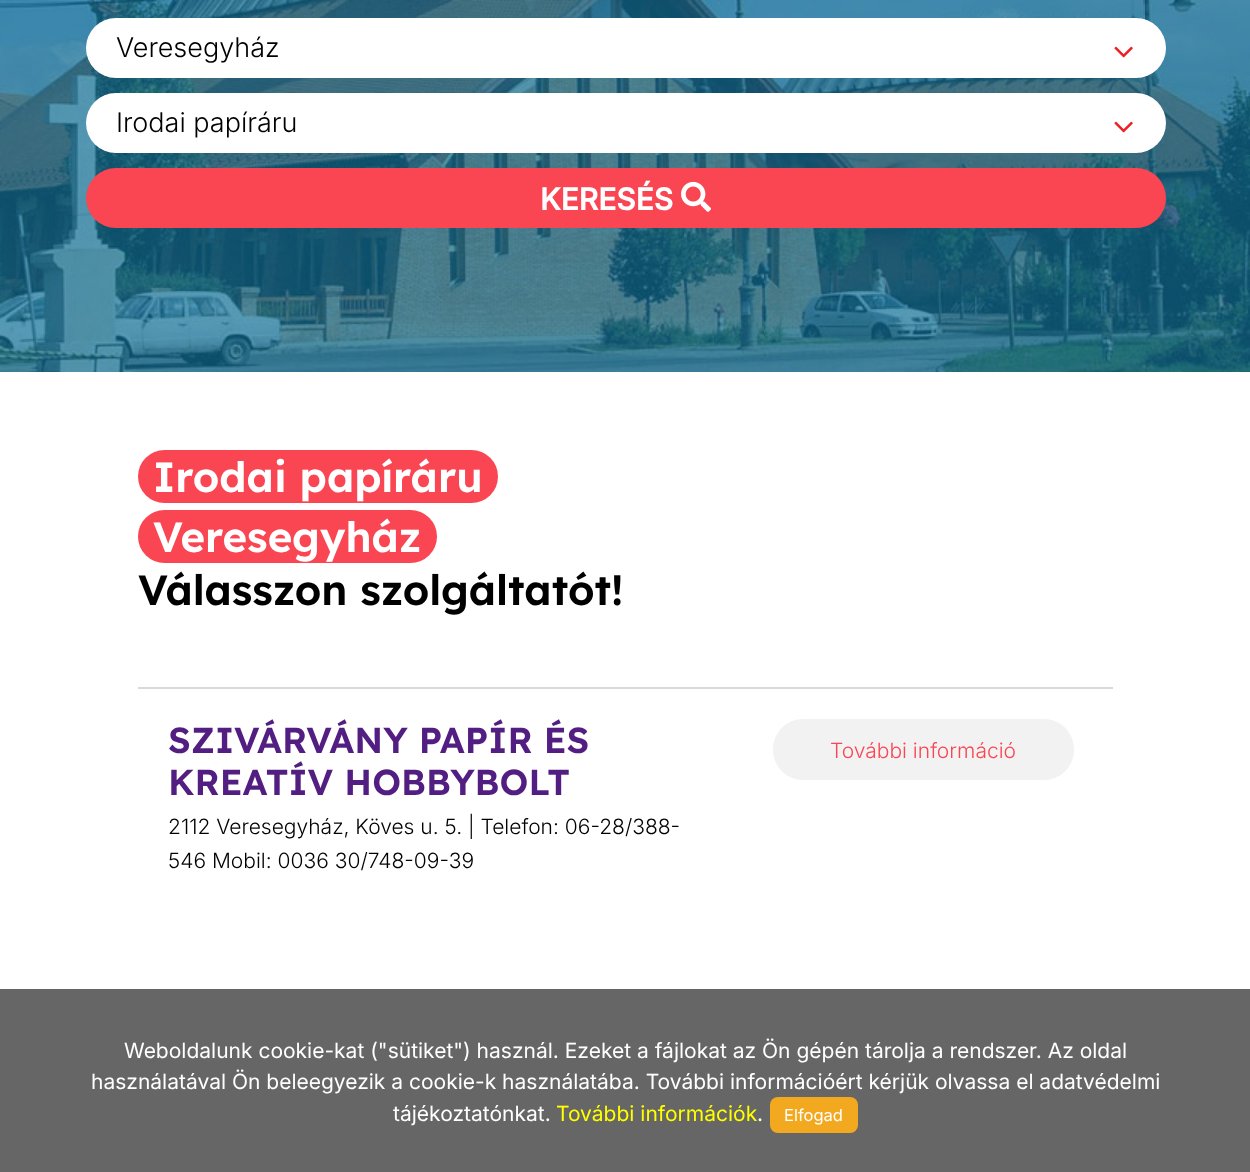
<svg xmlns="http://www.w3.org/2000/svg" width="1250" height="1172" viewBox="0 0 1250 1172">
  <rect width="100%" height="100%" fill="#fff"/>
  <image x="0" y="0" width="1250" height="372" href="img/1.png"/>
  <rect x="86" y="18" width="1080" height="60" rx="30" fill="#fff"/>
  <image x="1114" y="46" width="19" height="12" href="img/2.png"/>
  <rect x="86" y="93" width="1080" height="60" rx="30" fill="#fff"/>
  <image x="1114" y="121" width="19" height="12" href="img/2.png"/>
  <rect x="86" y="168" width="1080" height="60" rx="30" fill="#fa4652"/>
  <image x="681" y="181" width="30" height="31" href="img/3.png"/>
  <rect x="138" y="450" width="360" height="53" rx="26.5" fill="#fa4652"/>
  <rect x="138" y="510" width="299" height="53" rx="26.5" fill="#fa4652"/>
  <path d="M138 687h975v2H138z" fill="#d9d9d9"/>
  <rect x="773" y="719" width="301" height="61" rx="30" fill="#f2f2f2"/>
  <path d="M0 989h1250v183H0z" fill="#666"/>
  <rect x="770" y="1097" width="88" height="36" rx="8" fill="#f2a920"/>
  <g font-family="Inter" font-size="27" font-weight="300" fill="#000">
    <text x="116" y="57">Veresegyház</text>
    <text x="116" y="132">Irodai papíráru</text>
  </g>
  <text x="540" y="210" font-family="Inter" font-size="30" font-weight="bold" fill="#fff">KERESÉS</text>
  <g font-family="Lexend" font-size="42" font-weight="600" fill="#fff">
    <text x="153" y="492">Irodai papíráru</text>
    <text x="153" y="552">Veresegyház</text>
  </g>
  <text x="138" y="605" font-family="Lexend" font-size="42" font-weight="600" fill="#000">Válasszon szolgáltatót!</text>
  <g font-family="Lexend" font-size="36" font-weight="600" fill="#521e81">
    <text x="168" y="753">SZIVÁRVÁNY PAPÍR ÉS</text>
    <text x="168" y="795">KREATÍV HOBBYBOLT</text>
  </g>
  <g font-family="Inter" font-size="21" font-weight="300" fill="#000">
    <text x="168" y="834">2112 Veresegyház, Köves u. 5. | Telefon: 06-28/388-</text>
    <text x="168" y="868">546 Mobil: 0036 30/748-09-39</text>
  </g>
  <text x="830" y="758" font-family="Inter" font-size="21" font-weight="300" fill="#fa4652">További információ</text>
  <g font-family="Inter" font-size="21" fill="#fff">
    <text x="124" y="1058">Weboldalunk cookie-kat ("sütiket") használ. Ezeket a fájlokat az Ön gépén tárolja a rendszer. Az oldal</text>
    <text x="91" y="1089">használatával Ön beleegyezik a cookie-k használatába. További információért kérjük olvassa el adatvédelmi</text>
    <text x="393" y="1121">tájékoztatónkat.</text>
  </g>
  <text x="556" y="1121" font-family="Inter" font-size="21" fill="#ff0">További információk</text>
  <text x="757" y="1121" font-family="Inter" font-size="21" fill="#fff">.</text>
  <text x="784" y="1121" font-family="Inter" font-size="16.5" fill="#fff">Elfogad</text>
</svg>
